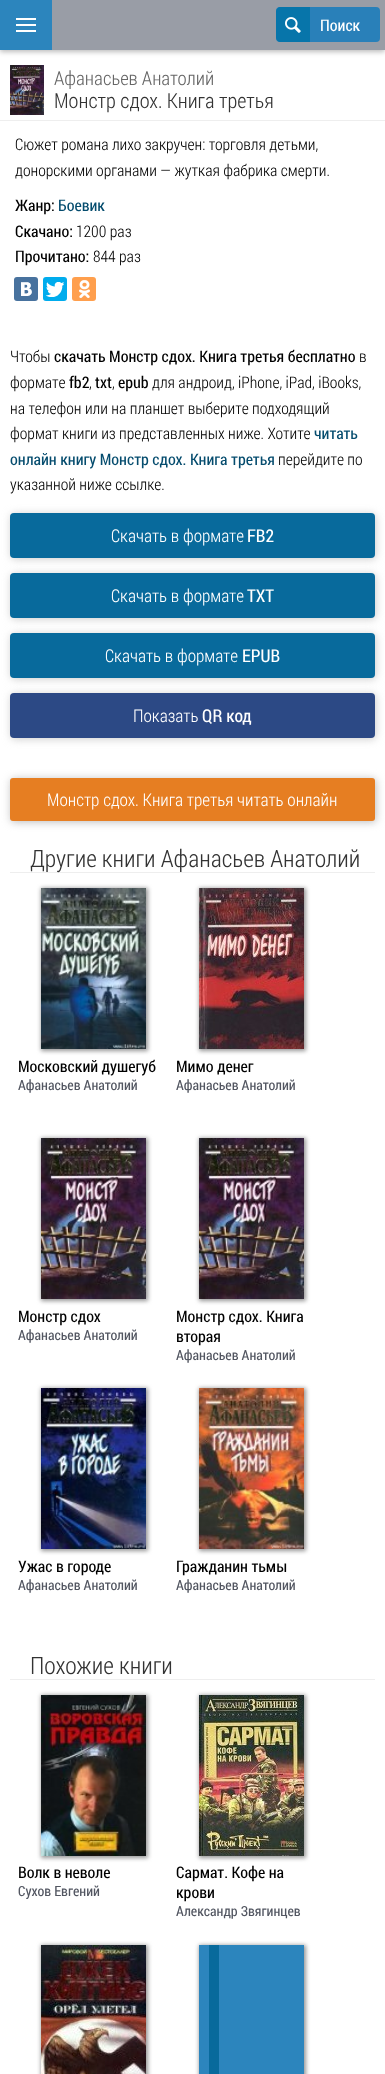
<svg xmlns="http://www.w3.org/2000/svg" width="385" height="2074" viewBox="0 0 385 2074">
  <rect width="100%" height="100%" fill="#fff"/>
  <path d="M0 2h385v50H0z" fill="#00000042" filter="blur(2.5px)"/>
  <path d="M0 0h52v50H0z" fill="#2c85bd"/>
  <path d="M16 24h20v2H16z" fill="#fff"/>
  <path d="M16 18h20v2H16z" fill="#fff"/>
  <path d="M16 30h20v2H16z" fill="#fff"/>
  <path d="M52 0h333v50H52z" fill="#999da6"/>
  <rect x="276" y="7" width="104" height="35" rx="4" fill="#2980b9"/>
  <path d="M281 7H310V42H281C278 42 276 40 276 37V12C276 9 278 7 281 7Z" fill="#0775aa"/>
  <image x="285" y="17" width="16" height="16" href="img/1.png"/>
  <path d="M0 120h385v1H0z" fill="#eee"/>
  <image x="10" y="65" width="34" height="50" href="img/2.png"/>
  <rect x="14" y="277" width="24" height="24" rx="3" fill="#48729e"/>
  <image x="21" y="282" width="11" height="14" href="img/3.png"/>
  <rect x="43" y="277" width="24" height="24" rx="3" fill="#00aced"/>
  <image x="46" y="282" width="18" height="15" href="img/4.png"/>
  <rect x="72" y="277" width="24" height="24" rx="3" fill="#ff9f4d"/>
  <image x="79" y="280" width="11" height="18" href="img/5.png"/>
  <rect x="11" y="514" width="365" height="45" rx="4" fill="#ccc" filter="blur(4px)"/>
  <rect x="10" y="513" width="365" height="45" rx="4" fill="#086a9c"/>
  <rect x="11" y="574" width="365" height="45" rx="4" fill="#ccc" filter="blur(4px)"/>
  <rect x="10" y="573" width="365" height="45" rx="4" fill="#086a9c"/>
  <rect x="11" y="634" width="365" height="45" rx="4" fill="#ccc" filter="blur(4px)"/>
  <rect x="10" y="633" width="365" height="45" rx="4" fill="#086a9c"/>
  <rect x="11" y="694" width="365" height="45" rx="4" fill="#ccc" filter="blur(4px)"/>
  <rect x="10" y="693" width="365" height="45" rx="4" fill="#2c4985"/>
  <rect x="11" y="779" width="365" height="43" rx="3" fill="#bbb" filter="blur(4px)"/>
  <rect x="10" y="778" width="365" height="43" rx="3" fill="#e67e22"/>
  <path d="M10 872h365v1H10z" fill="#eee"/>
  <path d="M41 888h107v163H41z" fill="#969696" filter="blur(2px)"/>
  <image x="41" y="888" width="105" height="161" href="img/6.png"/>
  <path d="M199 888h107v163H199z" fill="#969696" filter="blur(2px)"/>
  <image x="199" y="888" width="105" height="161" href="img/7.png"/>
  <path d="M41 1138h107v163H41z" fill="#969696" filter="blur(2px)"/>
  <image x="41" y="1138" width="105" height="161" href="img/8.png"/>
  <path d="M199 1138h107v163H199z" fill="#969696" filter="blur(2px)"/>
  <image x="199" y="1138" width="105" height="161" href="img/8.png"/>
  <path d="M41 1388h107v163H41z" fill="#969696" filter="blur(2px)"/>
  <image x="41" y="1388" width="105" height="161" href="img/9.png"/>
  <path d="M199 1388h107v163H199z" fill="#969696" filter="blur(2px)"/>
  <image x="199" y="1388" width="105" height="161" href="img/10.png"/>
  <path d="M10 1679h365v1H10z" fill="#eee"/>
  <path d="M41 1695h107v163H41z" fill="#969696" filter="blur(2px)"/>
  <image x="41" y="1695" width="105" height="161" href="img/11.png"/>
  <path d="M199 1695h107v163H199z" fill="#969696" filter="blur(2px)"/>
  <image x="199" y="1695" width="105" height="161" href="img/12.png"/>
  <path d="M41 1945h107v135H41z" fill="#969696" filter="blur(2px)"/>
  <image x="41" y="1945" width="105" height="129" href="img/13.png"/>
  <path d="M199 1945h107v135H199z" fill="#969696" filter="blur(2px)"/>
  <path d="M199 1945h105v129H199z" fill="#2c85bd"/>
  <path d="M209 1945h10v129H209z" fill="#086a9c"/>
  <text x="320" y="31" font-family="Roboto Condensed" font-size="16" fill="#fff">Поиск</text>
  <text x="54" y="85" font-family="Roboto Condensed" font-size="19.25" font-weight="300" fill="#666">Афанасьев Анатолий</text>
  <text x="54" y="108" font-family="Roboto Condensed" font-size="20.75" font-weight="300" fill="#333">Монстр сдох. Книга третья</text>
  <g font-family="Roboto Condensed" font-size="16" font-weight="300" fill="#000">
    <text x="15" y="150">Сюжет романа лихо закручен: торговля детьми,</text>
    <text x="15" y="176">донорскими органами — жуткая фабрика смерти.</text>
  </g>
  <text x="15" y="211" font-family="Roboto Condensed" font-size="16" fill="#000">Жанр:</text>
  <text x="58" y="211" font-family="Roboto Condensed" font-size="16" fill="#054c6e">Боевик</text>
  <text x="15" y="237" font-family="Roboto Condensed" font-size="16" fill="#000">Скачано:</text>
  <text x="76" y="237" font-family="Roboto Condensed" font-size="16" font-weight="300" fill="#000">1200 раз</text>
  <text x="15" y="262" font-family="Roboto Condensed" font-size="16" fill="#000">Прочитано:</text>
  <g font-family="Roboto Condensed" font-size="16" font-weight="300" fill="#000">
    <text x="93" y="262">844 раз</text>
    <text x="10" y="362">Чтобы</text>
  </g>
  <text x="54" y="362" font-family="Roboto Condensed" font-size="16" fill="#000">скачать Монстр сдох. Книга третья бесплатно</text>
  <g font-family="Roboto Condensed" font-size="16" font-weight="300" fill="#000">
    <text x="359" y="362">в</text>
    <text x="10" y="388">формате</text>
  </g>
  <text x="69" y="388" font-family="Roboto Condensed" font-size="16" fill="#000">fb2</text>
  <text x="89" y="388" font-family="Roboto Condensed" font-size="16" font-weight="300" fill="#000">,</text>
  <text x="95" y="388" font-family="Roboto Condensed" font-size="16" fill="#000">txt</text>
  <text x="112" y="388" font-family="Roboto Condensed" font-size="16" font-weight="300" fill="#000">,</text>
  <text x="118" y="388" font-family="Roboto Condensed" font-size="16" fill="#000">epub</text>
  <g font-family="Roboto Condensed" font-size="16" font-weight="300" fill="#000">
    <text x="152" y="388">для андроид, iPhone, iPad, iBooks,</text>
    <text x="10" y="414">на телефон или на планшет выберите подходящий</text>
    <text x="10" y="439">формат книги из представленных ниже. Хотите</text>
  </g>
  <g font-family="Roboto Condensed" font-size="16" fill="#054c6e">
    <text x="314" y="439">читать</text>
    <text x="10" y="465">онлайн книгу Монстр сдох. Книга третья</text>
  </g>
  <g font-family="Roboto Condensed" font-size="16" font-weight="300" fill="#000">
    <text x="278" y="465">перейдите по</text>
    <text x="10" y="490">указанной ниже ссылке.</text>
  </g>
  <text x="111" y="542" font-family="Roboto Condensed" font-size="17.6" font-weight="300" fill="#fff">Скачать в формате</text>
  <text x="247" y="542" font-family="Roboto Condensed" font-size="17.6" fill="#fff">FB2</text>
  <text x="111" y="602" font-family="Roboto Condensed" font-size="17.6" font-weight="300" fill="#fff">Скачать в формате</text>
  <text x="247" y="602" font-family="Roboto Condensed" font-size="17.6" fill="#fff">TXT</text>
  <text x="105" y="662" font-family="Roboto Condensed" font-size="17.6" font-weight="300" fill="#fff">Скачать в формате</text>
  <text x="242" y="662" font-family="Roboto Condensed" font-size="17.6" fill="#fff">EPUB</text>
  <text x="133" y="722" font-family="Roboto Condensed" font-size="17.6" font-weight="300" fill="#fff">Показать</text>
  <text x="202" y="722" font-family="Roboto Condensed" font-size="17.6" fill="#fff">QR код</text>
  <text x="47" y="806" font-family="Roboto Condensed" font-size="17.6" font-weight="300" fill="#fff">Монстр сдох. Книга третья читать онлайн</text>
  <text x="30" y="867" font-family="Roboto Condensed" font-size="24" font-weight="300" fill="#333">Другие книги Афанасьев Анатолий</text>
  <text x="18" y="1072" font-family="Roboto Condensed" font-size="16" fill="#000">Московский душегуб</text>
  <text x="18" y="1090" font-family="Roboto Condensed" font-size="14" fill="#525661">Афанасьев Анатолий</text>
  <text x="176" y="1072" font-family="Roboto Condensed" font-size="16" fill="#000">Мимо денег</text>
  <text x="176" y="1090" font-family="Roboto Condensed" font-size="14" fill="#525661">Афанасьев Анатолий</text>
  <text x="18" y="1322" font-family="Roboto Condensed" font-size="16" fill="#000">Монстр сдох</text>
  <text x="18" y="1340" font-family="Roboto Condensed" font-size="14" fill="#525661">Афанасьев Анатолий</text>
  <g font-family="Roboto Condensed" font-size="16" fill="#000">
    <text x="176" y="1322">Монстр сдох. Книга</text>
    <text x="176" y="1342">вторая</text>
  </g>
  <text x="176" y="1360" font-family="Roboto Condensed" font-size="14" fill="#525661">Афанасьев Анатолий</text>
  <text x="18" y="1572" font-family="Roboto Condensed" font-size="16" fill="#000">Ужас в городе</text>
  <text x="18" y="1590" font-family="Roboto Condensed" font-size="14" fill="#525661">Афанасьев Анатолий</text>
  <text x="176" y="1572" font-family="Roboto Condensed" font-size="16" fill="#000">Гражданин тьмы</text>
  <text x="176" y="1590" font-family="Roboto Condensed" font-size="14" fill="#525661">Афанасьев Анатолий</text>
  <text x="30" y="1674" font-family="Roboto Condensed" font-size="24" font-weight="300" fill="#333">Похожие книги</text>
  <text x="18" y="1878" font-family="Roboto Condensed" font-size="16" fill="#000">Волк в неволе</text>
  <text x="18" y="1896" font-family="Roboto Condensed" font-size="14" fill="#525661">Сухов Евгений</text>
  <g font-family="Roboto Condensed" font-size="16" fill="#000">
    <text x="176" y="1878">Сармат. Кофе на</text>
    <text x="176" y="1898">крови</text>
  </g>
  <text x="176" y="1916" font-family="Roboto Condensed" font-size="14" fill="#525661">Александр Звягинцев</text>
</svg>
